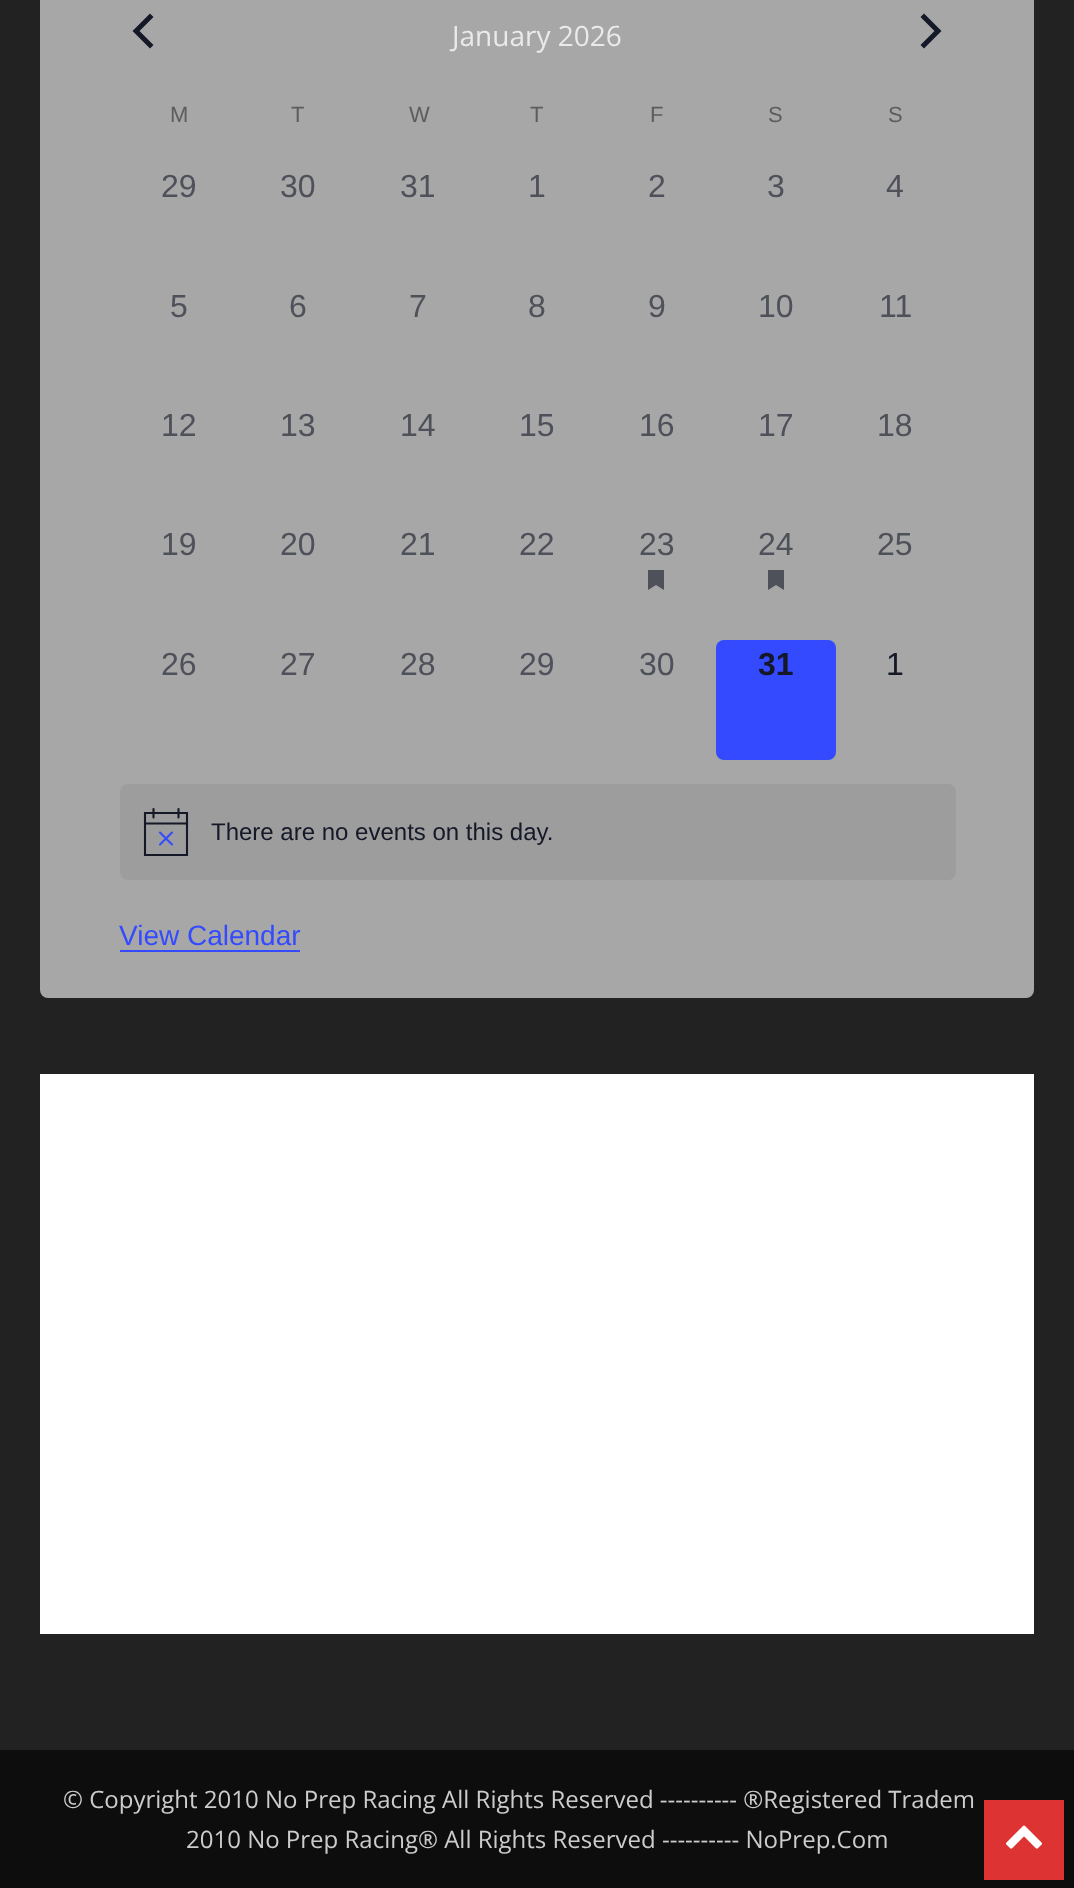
<svg xmlns="http://www.w3.org/2000/svg" width="1074" height="1888" viewBox="0 0 1074 1888">
  <rect width="100%" height="100%" fill="#0d0d0d"/>
  <path d="M0 0h1074v1750H0z" fill="#222"/>
  <rect x="40" y="-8" width="994" height="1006" rx="8" fill="#a7a7a7"/>
  <path d="M153.5 45L150 48.5L132.5 31L150 13.5L153.5 17L139.5 31Z" fill="#141827"/>
  <path d="M920.5 17L924 13.5L941.5 31L924 48.5L920.5 45L934.5 31Z" fill="#141827"/>
  <path d="M648 570H664V590L656 585L648 590Z" fill="#4f515a" fill-rule="evenodd"/>
  <path d="M768 570H784V590L776 585L768 590Z" fill="#4f515a" fill-rule="evenodd"/>
  <rect x="716" y="640" width="120" height="120" rx="8" fill="#334aff"/>
  <rect x="120" y="784" width="836" height="96" rx="8" fill="#9d9d9e"/>
  <path d="M145 813H187V855H145Z" fill="none" stroke="#141827" stroke-width="2.1"/>
  <path d="M160 832.5L172 844.5M172 832.5L160 844.5" fill="none" stroke="#334aff" stroke-width="2.1" stroke-linecap="round"/>
  <path d="M153.5 809V817.5M178.5 809V817.5" fill="none" stroke="#141827" stroke-width="2.1" stroke-linecap="round"/>
  <path d="M145 823.5H187" fill="none" stroke="#141827" stroke-width="2.1" stroke-linecap="square"/>
  <path d="M120 950h180v2H120z" fill="#334aff"/>
  <path d="M40 1074h994v560H40z" fill="#fff"/>
  <path d="M984 1800h80v80H984z" fill="#d33"/>
  <image x="1006" y="1825" width="36" height="24" href="img/1.png"/>
  <text x="452" y="46" font-family="Open Sans" font-size="28" fill="#eaeaea">January 2026</text>
  <g font-family="Liberation Sans" font-size="22" fill="#5d5d5d">
    <text x="170" y="122">M</text>
    <text x="291" y="122">T</text>
    <text x="409" y="122">W</text>
    <text x="530" y="122">T</text>
    <text x="650" y="122">F</text>
    <text x="768" y="122">S</text>
    <text x="888" y="122">S</text>
  </g>
  <g font-family="Liberation Sans" font-size="32" fill="#4f515a">
    <text x="161" y="197">29</text>
    <text x="280" y="197">30</text>
    <text x="400" y="197">31</text>
    <text x="528" y="197">1</text>
    <text x="648" y="197">2</text>
    <text x="767" y="197">3</text>
    <text x="886" y="197">4</text>
    <text x="170" y="317">5</text>
    <text x="289" y="317">6</text>
    <text x="409" y="317">7</text>
    <text x="528" y="317">8</text>
    <text x="648" y="317">9</text>
    <text x="758" y="317">10</text>
    <text x="879" y="317">11</text>
    <text x="161" y="436">12</text>
    <text x="280" y="436">13</text>
    <text x="400" y="436">14</text>
    <text x="519" y="436">15</text>
    <text x="639" y="436">16</text>
    <text x="758" y="436">17</text>
    <text x="877" y="436">18</text>
    <text x="161" y="555">19</text>
    <text x="280" y="555">20</text>
    <text x="400" y="555">21</text>
    <text x="519" y="555">22</text>
    <text x="639" y="555">23</text>
    <text x="758" y="555">24</text>
    <text x="877" y="555">25</text>
    <text x="161" y="675">26</text>
    <text x="280" y="675">27</text>
    <text x="400" y="675">28</text>
    <text x="519" y="675">29</text>
    <text x="639" y="675">30</text>
  </g>
  <text x="758" y="675" font-family="Liberation Sans" font-size="32" font-weight="bold" fill="#141827">31</text>
  <text x="886" y="675" font-family="Liberation Sans" font-size="32" fill="#141827">1</text>
  <text x="211" y="840" font-family="Liberation Sans" font-size="24" fill="#141827">There are no events on this day.</text>
  <text x="119" y="945" font-family="Liberation Sans" font-size="28" fill="#334aff">View Calendar</text>
  <g font-family="Open Sans" font-size="24" fill="#ccc">
    <text x="63" y="1808">© Copyright 2010 No Prep Racing All Rights Reserved ---------- ®Registered Tradem</text>
    <text x="186" y="1848">2010 No Prep Racing® All Rights Reserved ---------- NoPrep.Com</text>
  </g>
</svg>
